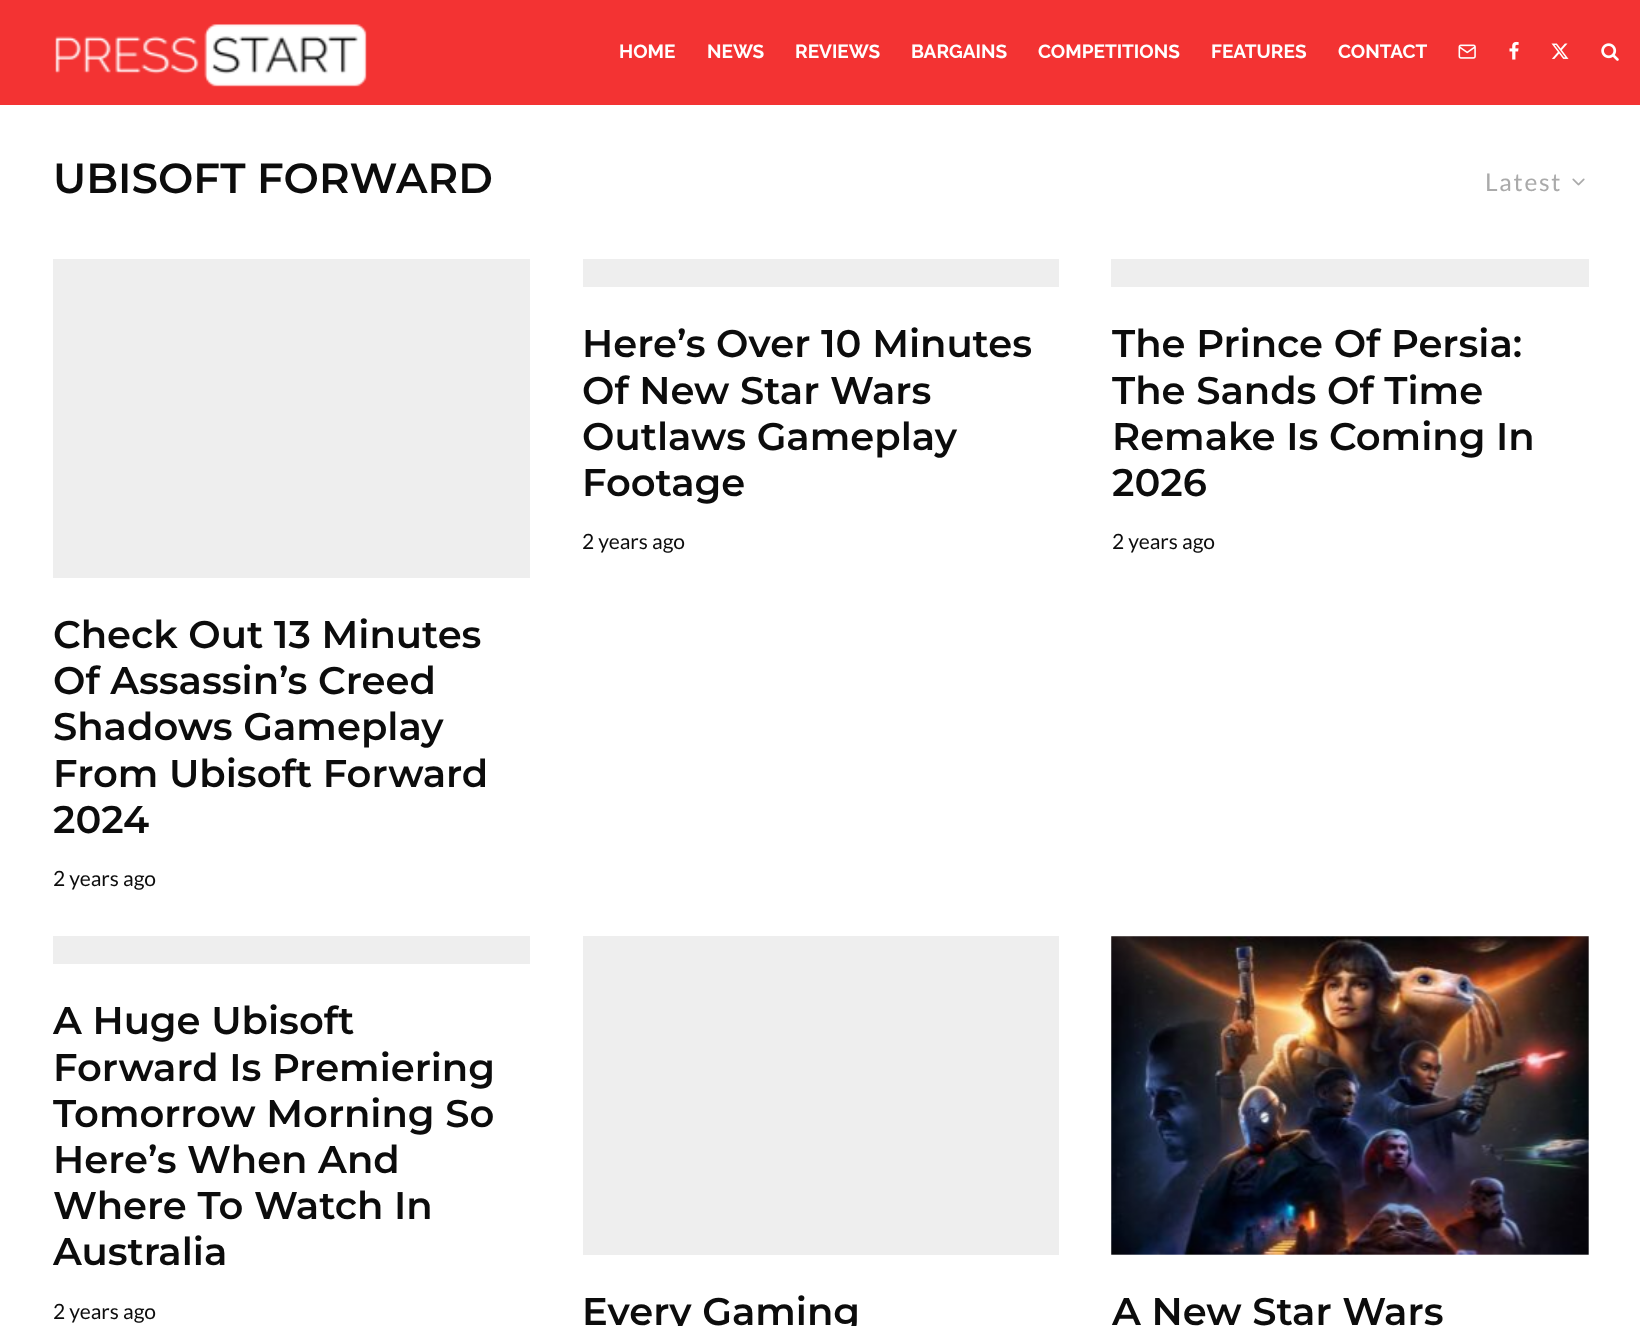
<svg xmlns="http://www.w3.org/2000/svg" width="1640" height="1326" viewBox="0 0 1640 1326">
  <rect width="100%" height="100%" fill="#fff"/>
  <path d="M0 0h1640v105H0z" fill="#f33333"/>
  <image x="55" y="24" width="312" height="63" href="img/1.png"/>
  <image x="1458" y="44" width="18" height="15" href="img/2.png"/>
  <image x="1509" y="41" width="10" height="19" href="img/3.png"/>
  <image x="1551" y="43" width="18" height="16" href="img/4.png"/>
  <image x="1601" y="43" width="18" height="18" href="img/5.png"/>
  <image x="1572" y="178" width="13" height="8" href="img/6.png"/>
  <path d="M583 259h476v28H583z" fill="#eee"/>
  <path d="M1111 259h478v28H1111z" fill="#eee"/>
  <path d="M53 259h477v319H53z" fill="#eee"/>
  <path d="M53 936h477v28H53z" fill="#eee"/>
  <path d="M583 936h476v319H583z" fill="#eee"/>
  <path d="M1111 936h478v319H1111z" fill="#eee"/>
  <image x="1111" y="936" width="478" height="319" href="img/7.png"/>
  <g font-family="Raleway" font-size="19" font-weight="100" fill="#fff">
    <text x="619" y="58">HOME</text>
    <text x="707" y="58">NEWS</text>
    <text x="795" y="58">REVIEWS</text>
    <text x="911" y="58">BARGAINS</text>
    <text x="1038" y="58">COMPETITIONS</text>
    <text x="1211" y="58">FEATURES</text>
    <text x="1338" y="58">CONTACT</text>
  </g>
  <text x="53" y="193" font-family="Montserrat" font-size="42" font-weight="600" fill="#0c0c0c">UBISOFT FORWARD</text>
  <text x="1485" y="191" font-family="Lato" font-size="24.5" letter-spacing="1.75" fill="#aaa">Latest</text>
  <g font-family="Montserrat" font-size="38.5" font-weight="600" fill="#0c0c0c">
    <text x="582" y="357">Here’s Over 10 Minutes</text>
    <text x="582" y="404">Of New Star Wars</text>
    <text x="582" y="450">Outlaws Gameplay</text>
    <text x="582" y="496">Footage</text>
  </g>
  <text x="582" y="549" font-family="Lato" font-size="21" fill="#0c0c0c">2 years ago</text>
  <g font-family="Montserrat" font-size="38.5" font-weight="600" fill="#0c0c0c">
    <text x="1112" y="357">The Prince Of Persia:</text>
    <text x="1112" y="404">The Sands Of Time</text>
    <text x="1112" y="450">Remake Is Coming In</text>
    <text x="1112" y="496">2026</text>
  </g>
  <text x="1112" y="549" font-family="Lato" font-size="21" fill="#0c0c0c">2 years ago</text>
  <g font-family="Montserrat" font-size="38.5" font-weight="600" fill="#0c0c0c">
    <text x="53" y="648">Check Out 13 Minutes</text>
    <text x="53" y="694">Of Assassin’s Creed</text>
    <text x="53" y="740">Shadows Gameplay</text>
    <text x="53" y="787">From Ubisoft Forward</text>
    <text x="53" y="833">2024</text>
  </g>
  <text x="53" y="886" font-family="Lato" font-size="21" fill="#0c0c0c">2 years ago</text>
  <g font-family="Montserrat" font-size="38.5" font-weight="600" fill="#0c0c0c">
    <text x="53" y="1034">A Huge Ubisoft</text>
    <text x="53" y="1081">Forward Is Premiering</text>
    <text x="53" y="1127">Tomorrow Morning So</text>
    <text x="53" y="1173">Here’s When And</text>
    <text x="53" y="1219">Where To Watch In</text>
    <text x="53" y="1265">Australia</text>
  </g>
  <text x="53" y="1319" font-family="Lato" font-size="21" fill="#0c0c0c">2 years ago</text>
  <g font-family="Montserrat" font-size="38.5" font-weight="600" fill="#0c0c0c">
    <text x="582" y="1325">Every Gaming</text>
    <text x="1112" y="1325">A New Star Wars</text>
  </g>
</svg>
